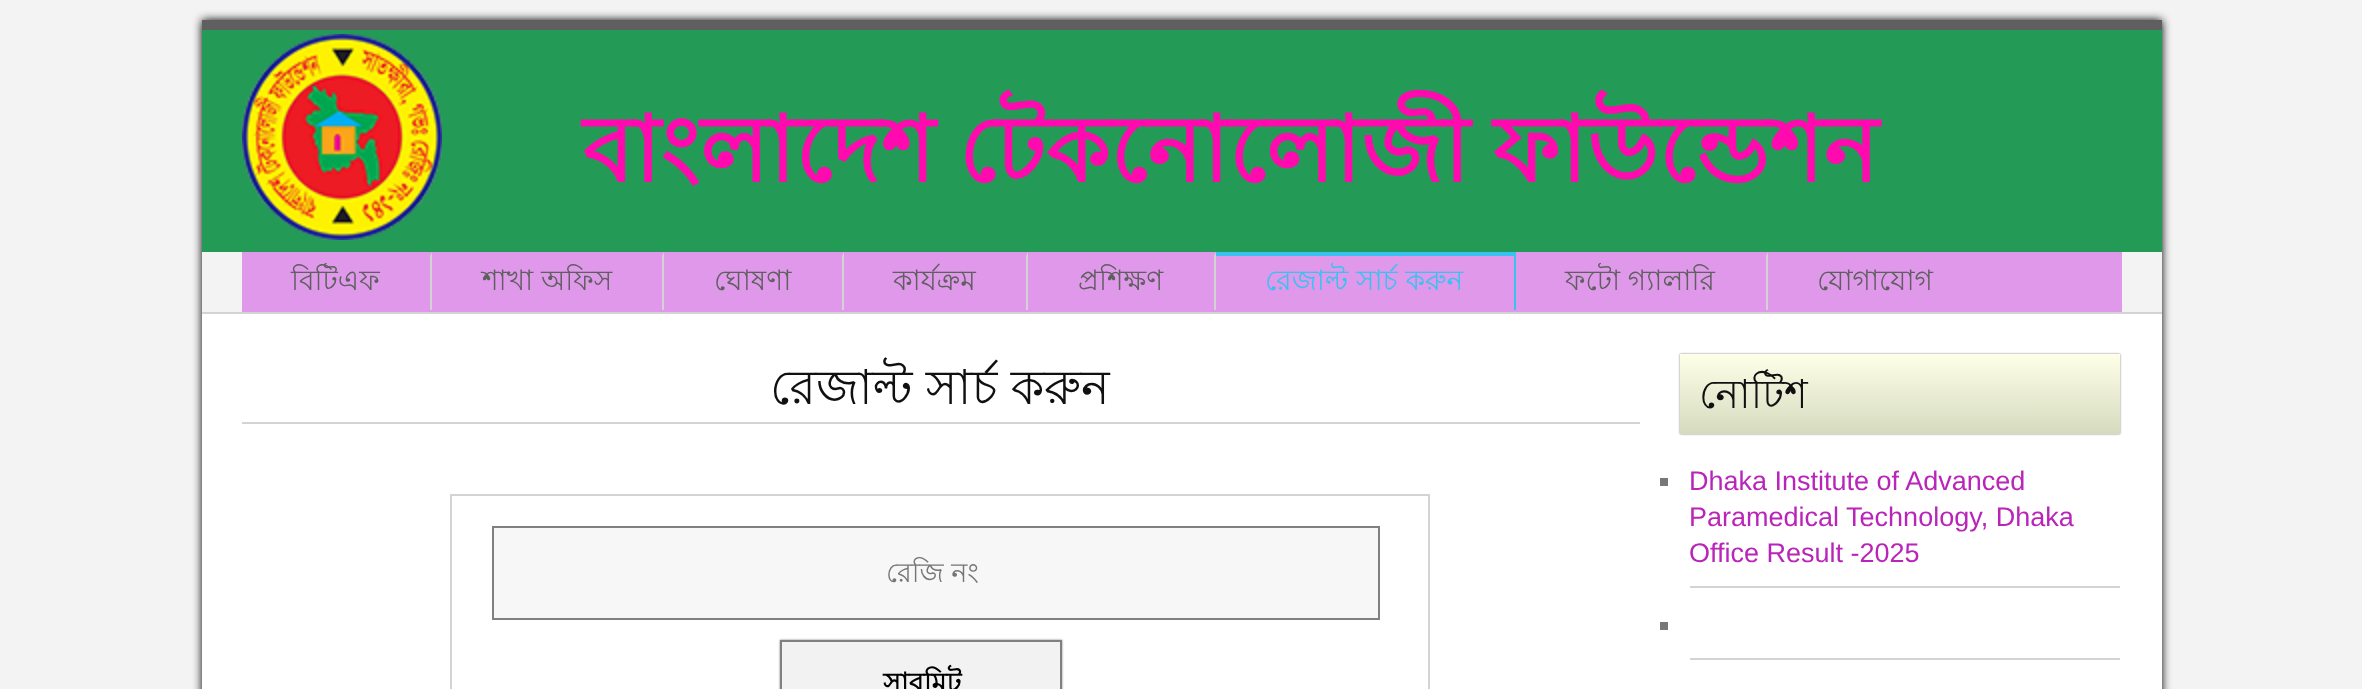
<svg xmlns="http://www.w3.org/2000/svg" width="2362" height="689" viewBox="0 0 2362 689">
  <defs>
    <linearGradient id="g1" gradientUnits="userSpaceOnUse" x1="1900" y1="354" x2="1900" y2="434"><stop offset="0" stop-color="#feffe8"/><stop offset="1" stop-color="#d6dbbf"/></linearGradient>
  </defs>
  <rect width="100%" height="100%" fill="#f3f3f3"/>
  <path d="M202 20h1960v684H202z" fill="#000" filter="blur(5px)"/>
  <path d="M202 314h1960v375H202z" fill="#fff"/>
  <path d="M202 252h1960v60H202z" fill="#f3f3f3"/>
  <path d="M202 20h1960v10H202z" fill="#5f5f5f"/>
  <path d="M202 30h1960v222H202z" fill="#239b56"/>
  <image x="242" y="34" width="200" height="206" href="img/1.png"/>
  <path d="M202 312h1960v2H202z" fill="#d3d3d3"/>
  <path d="M242 252h1880v60H242z" fill="#df98ea"/>
  <path d="M432 252V310H430V256Z" fill="#d3d3d3"/>
  <path d="M664 252V310H662V256Z" fill="#d3d3d3"/>
  <path d="M844 252V310H842V256Z" fill="#d3d3d3"/>
  <path d="M1028 252V310H1026V256Z" fill="#d3d3d3"/>
  <path d="M1216 252V310H1214V256Z" fill="#d3d3d3"/>
  <path d="M1216 252h300v4H1216z" fill="#39c2f0"/>
  <path d="M1514 252h2v58H1514z" fill="#39c2f0"/>
  <path d="M1768 252V310H1766V256Z" fill="#d3d3d3"/>
  <path d="M242 422h1398v2H242z" fill="#d3d3d3"/>
  <path d="M450 494h980v2H450z" fill="#d3d3d3"/>
  <path d="M1428 494h2v195H1428z" fill="#d3d3d3"/>
  <path d="M450 494h2v195H450z" fill="#d3d3d3"/>
  <path d="M493 527h886v92H493z" fill="#f7f7f7" stroke="#808080" stroke-width="2"/>
  <path d="M780 640h282v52H780z" fill="#808080" filter="blur(1px)"/>
  <path d="M781 641h280v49H781z" fill="#f2f2f2" stroke="#808080" stroke-width="2"/>
  <path d="M1680 354h440v80H1680z" fill="#808080" filter="blur(1px)"/>
  <path d="M1680 354h440v80H1680z" fill="url(#g1)"/>
  <path d="M1690 586h430v2H1690z" fill="#d3d3d3"/>
  <path d="M1660 478h8v8H1660z" fill="#777"/>
  <path d="M1690 658h430v2H1690z" fill="#d3d3d3"/>
  <path d="M1660 622h8v8H1660z" fill="#777"/>
  <text x="582" y="182" word-spacing="-2" font-family="Lohit Bengali" font-size="92" font-weight="bold" fill="#ff0aae">বাংলাদেশ টেকনোলোজী ফাউন্ডেশন</text>
  <g font-family="Lohit Bengali" font-size="28" fill="#5f5f5f">
    <text x="291" y="290">বিটিএফ</text>
    <text x="482" y="290">শাখা অফিস</text>
    <text x="714" y="290">ঘোষণা</text>
    <text x="893" y="290">কার্যক্রম</text>
    <text x="1078" y="290">প্রশিক্ষণ</text>
  </g>
  <text x="1265" y="290" font-family="Lohit Bengali" font-size="28" fill="#39c2f0">রেজাল্ট সার্চ করুন</text>
  <g font-family="Lohit Bengali" font-size="28" fill="#5f5f5f">
    <text x="1565" y="290">ফটো গ্যালারি</text>
    <text x="1817" y="290">যোগাযোগ</text>
  </g>
  <text x="770" y="404" font-family="Lohit Bengali" font-size="48" fill="#101010">রেজাল্ট সার্চ করুন</text>
  <text x="886" y="582" font-family="Lohit Bengali" font-size="27" fill="#757575">রেজি নং</text>
  <text x="883" y="692" font-family="Lohit Bengali" font-size="27" font-weight="bold" fill="#000">সাবমিট</text>
  <text x="1699" y="408" font-family="Lohit Bengali" font-size="40" fill="#101010">নোটিশ</text>
  <g font-family="Liberation Sans" font-size="27" fill="#b925b9">
    <text x="1689" y="490">Dhaka Institute of Advanced</text>
    <text x="1689" y="526">Paramedical Technology, Dhaka</text>
    <text x="1689" y="562">Office Result -2025</text>
  </g>
</svg>
